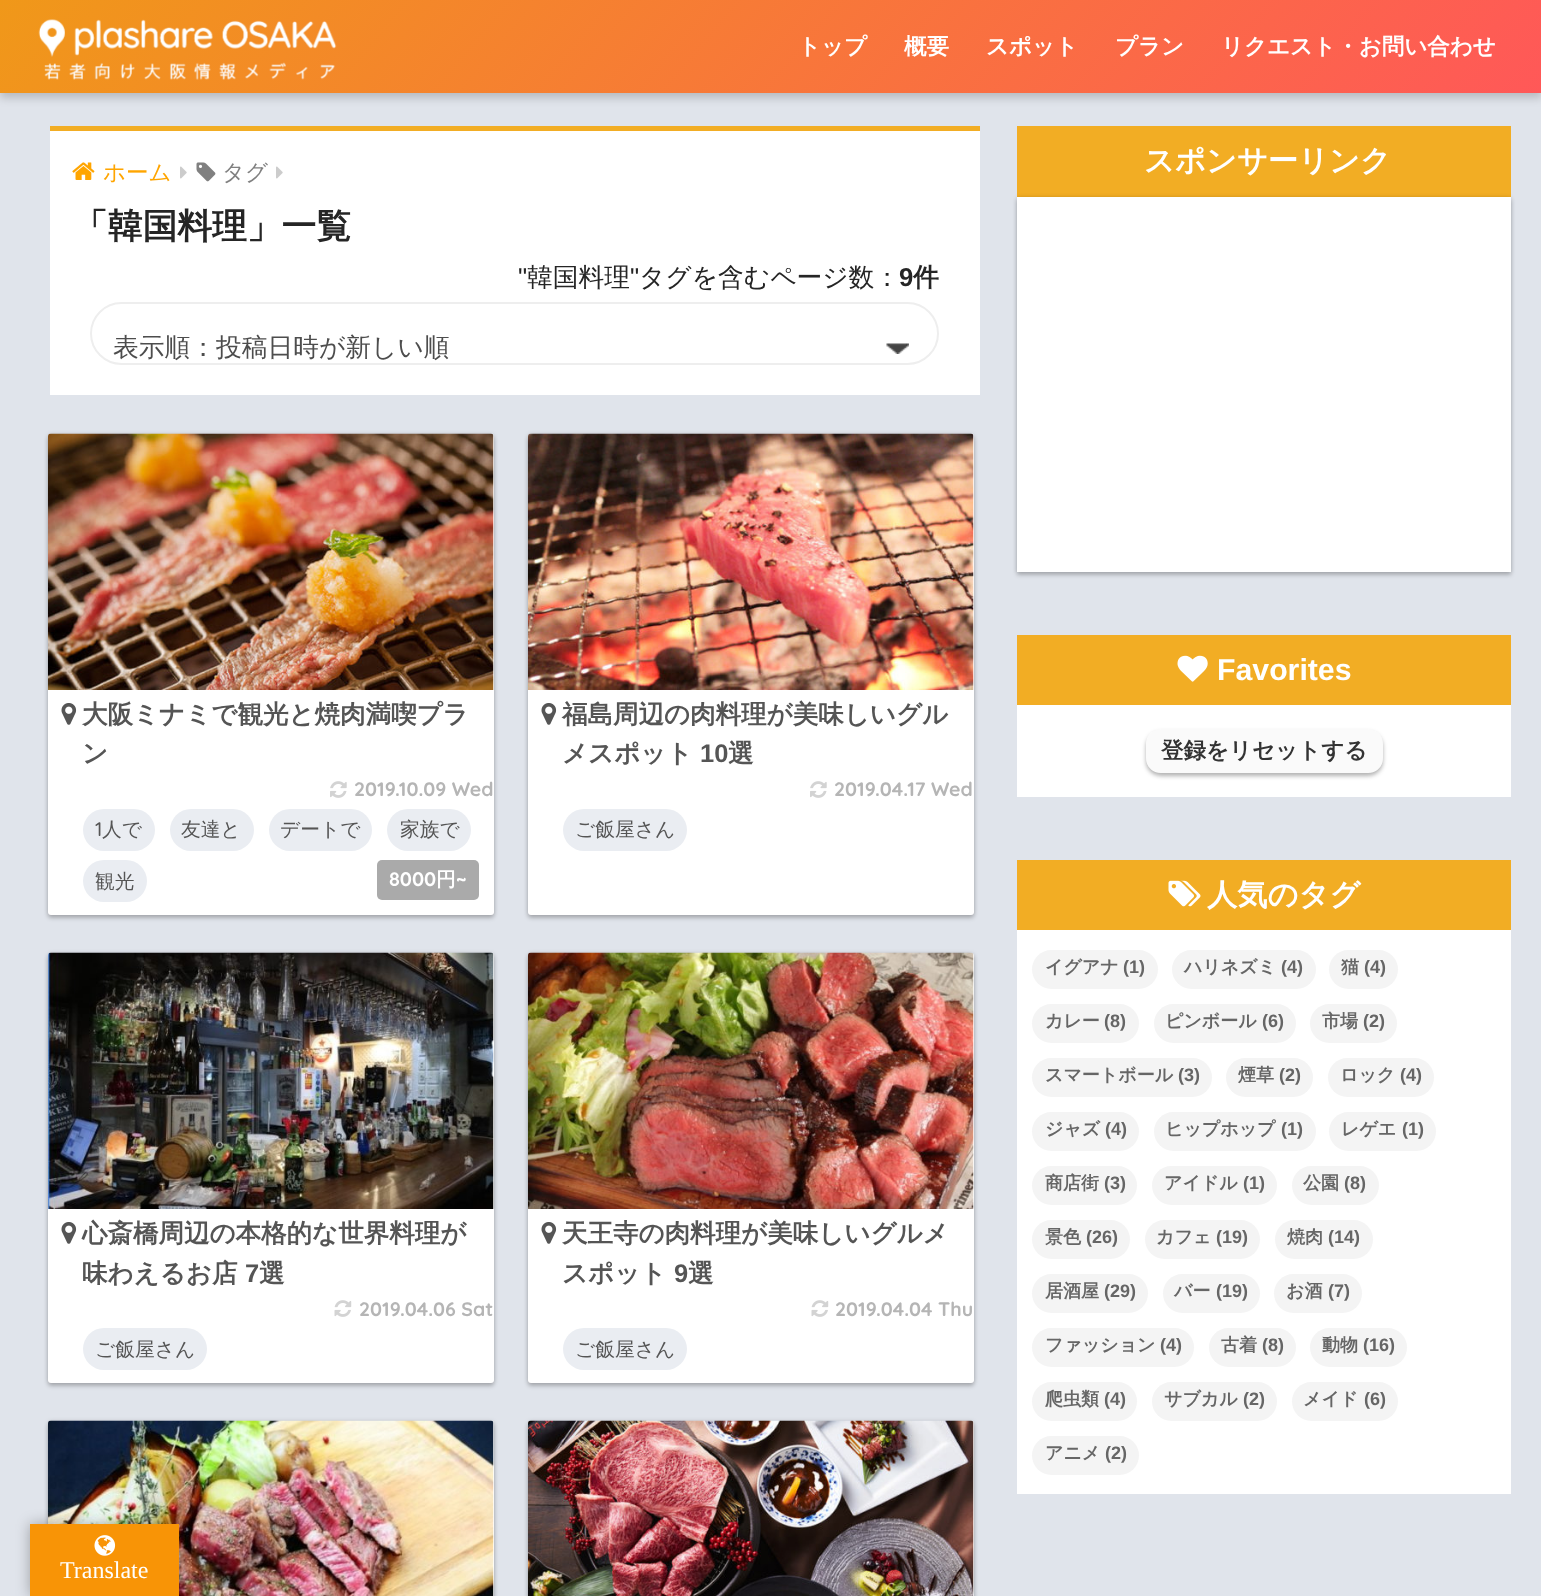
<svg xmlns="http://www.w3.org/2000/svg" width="1541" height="1596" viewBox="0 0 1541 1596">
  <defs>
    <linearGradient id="g1" gradientUnits="userSpaceOnUse" x1="1246" y1="445" x2="296" y2="-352"><stop offset="0" stop-color="#ff5858"/><stop offset="1" stop-color="#f09819"/></linearGradient>
    <clipPath id="clip1"><path d="M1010 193H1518V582H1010ZM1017 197H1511V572H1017Z" clip-rule="evenodd"/></clipPath>
    <clipPath id="clip2"><path d="M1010 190H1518V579H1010ZM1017 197H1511V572H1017Z" clip-rule="evenodd"/></clipPath>
    <clipPath id="clip3"><path d="M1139 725H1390V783H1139ZM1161 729H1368C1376.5 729 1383 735.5 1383 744V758C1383 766.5 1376.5 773 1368 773H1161C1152.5 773 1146 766.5 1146 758V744C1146 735.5 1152.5 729 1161 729Z" clip-rule="evenodd"/></clipPath>
  </defs>
  <rect width="100%" height="100%" fill="#e0e4eb"/>
  <path d="M0 5h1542v93H0z" fill="#0000002e" filter="blur(4.5px)"/>
  <path d="M0 0h1541v93H0z" fill="url(#g1)"/>
  <image x="38" y="19" width="299" height="61" href="img/1.png"/>
  <path d="M50 131h930v264H50z" fill="#fff"/>
  <path d="M50 126h930v5H50z" fill="#f2ad24"/>
  <image x="72" y="162" width="23" height="18" href="img/2.png"/>
  <image x="180" y="166" width="7" height="13" href="img/3.png"/>
  <image x="196" y="162" width="20" height="20" href="img/4.png"/>
  <image x="276" y="166" width="7" height="13" href="img/3.png"/>
  <rect x="91" y="303" width="847" height="61" rx="30.5" fill="none" stroke="#eee" stroke-width="2"/>
  <image x="886" y="343" width="23" height="11" href="img/5.png"/>
  <rect x="48" y="437" width="446" height="481" rx="3" fill="#00000038" filter="blur(2px)"/>
  <rect x="48" y="434" width="446" height="481" rx="3" fill="#0000001f" filter="blur(2px)"/>
  <rect x="48" y="434" width="446" height="481" rx="3" fill="#fff"/>
  <image x="48" y="433" width="446" height="257" href="img/6.png"/>
  <image x="61" y="703" width="16" height="22" href="img/7.png"/>
  <image x="330" y="781" width="17" height="17" href="img/8.png"/>
  <rect x="83" y="809" width="72" height="42" rx="21" fill="#eaedf2"/>
  <rect x="170" y="809" width="84" height="42" rx="21" fill="#eaedf2"/>
  <rect x="269" y="809" width="103" height="42" rx="21" fill="#eaedf2"/>
  <rect x="387" y="809" width="84" height="42" rx="21" fill="#eaedf2"/>
  <rect x="83" y="860" width="64" height="42" rx="21" fill="#eaedf2"/>
  <rect x="377" y="860" width="102" height="40" rx="5" fill="#aaa"/>
  <rect x="528" y="437" width="446" height="481" rx="3" fill="#00000038" filter="blur(2px)"/>
  <rect x="528" y="434" width="446" height="481" rx="3" fill="#0000001f" filter="blur(2px)"/>
  <rect x="528" y="434" width="446" height="481" rx="3" fill="#fff"/>
  <image x="528" y="433" width="446" height="257" href="img/9.png"/>
  <image x="541" y="703" width="16" height="22" href="img/7.png"/>
  <image x="810" y="781" width="17" height="17" href="img/8.png"/>
  <rect x="563" y="809" width="124" height="42" rx="21" fill="#eaedf2"/>
  <rect x="48" y="956" width="446" height="430" rx="3" fill="#00000038" filter="blur(2px)"/>
  <rect x="48" y="953" width="446" height="430" rx="3" fill="#0000001f" filter="blur(2px)"/>
  <rect x="48" y="953" width="446" height="430" rx="3" fill="#fff"/>
  <image x="48" y="952" width="446" height="257" href="img/10.png"/>
  <image x="61" y="1222" width="16" height="22" href="img/7.png"/>
  <image x="334" y="1300" width="18" height="17" href="img/11.png"/>
  <rect x="83" y="1328" width="124" height="42" rx="21" fill="#eaedf2"/>
  <rect x="528" y="956" width="446" height="430" rx="3" fill="#00000038" filter="blur(2px)"/>
  <rect x="528" y="953" width="446" height="430" rx="3" fill="#0000001f" filter="blur(2px)"/>
  <rect x="528" y="953" width="446" height="430" rx="3" fill="#fff"/>
  <image x="528" y="952" width="446" height="257" href="img/12.png"/>
  <image x="541" y="1222" width="16" height="22" href="img/7.png"/>
  <image x="811" y="1300" width="18" height="17" href="img/11.png"/>
  <rect x="563" y="1328" width="124" height="42" rx="21" fill="#eaedf2"/>
  <rect x="48" y="1424" width="446" height="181" rx="3" fill="#00000038" filter="blur(2px)"/>
  <rect x="48" y="1421" width="446" height="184" rx="3" fill="#0000001f" filter="blur(2px)"/>
  <rect x="48" y="1421" width="446" height="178" rx="3" fill="#fff"/>
  <image x="48" y="1420" width="446" height="176" href="img/13.png"/>
  <rect x="528" y="1424" width="446" height="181" rx="3" fill="#00000038" filter="blur(2px)"/>
  <rect x="528" y="1421" width="446" height="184" rx="3" fill="#0000001f" filter="blur(2px)"/>
  <rect x="528" y="1421" width="446" height="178" rx="3" fill="#fff"/>
  <image x="528" y="1420" width="446" height="176" href="img/14.png"/>
  <path d="M1017 197h494v375H1017z" fill="#fff"/>
  <path d="M1017 126h494v71H1017z" fill="#f2ad24"/>
  <g clip-path="url(#clip1)">
    <path d="M1017 200h494v375H1017z" fill="#00000038" filter="blur(2px)"/>
  </g>
  <g clip-path="url(#clip2)">
    <path d="M1017 197h494v375H1017z" fill="#0000001f" filter="blur(2px)"/>
  </g>
  <path d="M1017 705h494v92H1017z" fill="#fff"/>
  <path d="M1017 635h494v70H1017z" fill="#f2ad24"/>
  <image x="1177" y="655" width="31" height="27" href="img/15.png"/>
  <g clip-path="url(#clip3)">
    <rect x="1146" y="732" width="237" height="44" rx="15" fill="#0000004d" filter="blur(2px)"/>
  </g>
  <rect x="1146" y="729" width="237" height="44" rx="15" fill="#efefef4d"/>
  <path d="M1017 930h494v564H1017z" fill="#fff"/>
  <path d="M1017 860h494v70H1017z" fill="#f2ad24"/>
  <image x="1168" y="880" width="33" height="27" href="img/16.png"/>
  <rect x="1032" y="950" width="126" height="39" rx="19.5" fill="#f4f4f4"/>
  <rect x="1172" y="950" width="144" height="39" rx="19.5" fill="#f4f4f4"/>
  <rect x="1329" y="950" width="69" height="39" rx="19.5" fill="#f4f4f4"/>
  <rect x="1032" y="1004" width="107" height="39" rx="19.5" fill="#f4f4f4"/>
  <rect x="1154" y="1004" width="142" height="39" rx="19.5" fill="#f4f4f4"/>
  <rect x="1310" y="1004" width="87" height="39" rx="19.5" fill="#f4f4f4"/>
  <rect x="1032" y="1058" width="180" height="39" rx="19.5" fill="#f4f4f4"/>
  <rect x="1226" y="1058" width="87" height="39" rx="19.5" fill="#f4f4f4"/>
  <rect x="1328" y="1058" width="106" height="39" rx="19.5" fill="#f4f4f4"/>
  <rect x="1032" y="1112" width="107" height="39" rx="19.5" fill="#f4f4f4"/>
  <rect x="1154" y="1112" width="162" height="39" rx="19.5" fill="#f4f4f4"/>
  <rect x="1329" y="1112" width="107" height="39" rx="19.5" fill="#f4f4f4"/>
  <rect x="1032" y="1166" width="105" height="39" rx="19.5" fill="#f4f4f4"/>
  <rect x="1152" y="1166" width="125" height="39" rx="19.5" fill="#f4f4f4"/>
  <rect x="1292" y="1166" width="87" height="39" rx="19.5" fill="#f4f4f4"/>
  <rect x="1032" y="1220" width="98" height="39" rx="19.5" fill="#f4f4f4"/>
  <rect x="1145" y="1220" width="115" height="39" rx="19.5" fill="#f4f4f4"/>
  <rect x="1275" y="1220" width="98" height="39" rx="19.5" fill="#f4f4f4"/>
  <rect x="1032" y="1274" width="116" height="39" rx="19.5" fill="#f4f4f4"/>
  <rect x="1163" y="1274" width="97" height="39" rx="19.5" fill="#f4f4f4"/>
  <rect x="1274" y="1274" width="88" height="39" rx="19.5" fill="#f4f4f4"/>
  <rect x="1032" y="1328" width="162" height="39" rx="19.5" fill="#f4f4f4"/>
  <rect x="1209" y="1328" width="87" height="39" rx="19.5" fill="#f4f4f4"/>
  <rect x="1310" y="1328" width="97" height="39" rx="19.5" fill="#f4f4f4"/>
  <rect x="1032" y="1382" width="105" height="39" rx="19.5" fill="#f4f4f4"/>
  <rect x="1152" y="1382" width="125" height="39" rx="19.5" fill="#f4f4f4"/>
  <rect x="1292" y="1382" width="106" height="39" rx="19.5" fill="#f4f4f4"/>
  <rect x="1032" y="1436" width="107" height="39" rx="19.5" fill="#f4f4f4"/>
  <path d="M30 1524h149v72H30z" fill="#0000004d" filter="blur(7px)"/>
  <path d="M30 1524h149v72H30z" fill="#f89406"/>
  <image x="94" y="1535" width="22" height="21" href="img/17.png"/>
  <g font-family="WenQuanYi Zen Hei" font-size="22.5" font-weight="bold" fill="#fff">
    <text x="798" y="54">トップ</text>
    <text x="904" y="54">概要</text>
    <text x="986" y="54">スポット</text>
    <text x="1115" y="54">プラン</text>
    <text x="1221" y="54">リクエスト・お問い合わせ</text>
  </g>
  <text x="103" y="180" font-family="WenQuanYi Zen Hei" font-size="22.5" font-weight="500" fill="#ffa500">ホーム</text>
  <text x="222" y="180" font-family="WenQuanYi Zen Hei" font-size="22.5" font-weight="500" fill="#808080">タグ</text>
  <text x="73" y="238" font-family="WenQuanYi Zen Hei" font-size="34.75" font-weight="bold" fill="#252525">「韓国料理」一覧</text>
  <text x="518" y="286" font-family="Liberation Sans" font-size="25.75" fill="#252525">"</text>
  <text x="527" y="286" font-family="WenQuanYi Zen Hei" font-size="25.75" font-weight="500" fill="#252525">韓国料理</text>
  <text x="630" y="286" font-family="Liberation Sans" font-size="25.75" fill="#252525">"</text>
  <text x="639" y="286" font-family="WenQuanYi Zen Hei" font-size="25.75" font-weight="500" fill="#252525">タグを含むページ数：</text>
  <text x="899" y="286" font-family="Liberation Sans" font-size="25.75" font-weight="bold" fill="#252525">9</text>
  <text x="913" y="286" font-family="WenQuanYi Zen Hei" font-size="25.75" font-weight="bold" fill="#252525">件</text>
  <text x="113" y="356" font-family="WenQuanYi Zen Hei" font-size="25.75" font-weight="500" fill="#4d4d4d">表示順：投稿日時が新しい順</text>
  <g font-family="WenQuanYi Zen Hei" font-size="25.5" font-weight="bold" fill="#555">
    <text x="82" y="723">大阪ミナミで観光と焼肉満喫プラ</text>
    <text x="82" y="762">ン</text>
  </g>
  <text x="354" y="796" font-family="Quicksand" font-size="19.5" font-weight="bold" fill="#b5b5b5">2019.10.09 Wed</text>
  <text x="95" y="836" font-family="Quicksand" font-size="19.75" font-weight="500" fill="#555">1</text>
  <g font-family="WenQuanYi Zen Hei" font-size="19.75" font-weight="500" fill="#555">
    <text x="102" y="836">人で</text>
    <text x="181" y="836">友達と</text>
    <text x="280" y="836">デートで</text>
    <text x="400" y="836">家族で</text>
    <text x="95" y="888">観光</text>
  </g>
  <text x="389" y="886" font-family="Quicksand" font-size="19.75" font-weight="bold" fill="#fff">8000</text>
  <text x="436" y="886" font-family="WenQuanYi Zen Hei" font-size="19.75" font-weight="bold" fill="#fff">円</text>
  <text x="456" y="886" font-family="Quicksand" font-size="19.75" font-weight="bold" fill="#fff">~</text>
  <g font-family="WenQuanYi Zen Hei" font-size="25.5" font-weight="bold" fill="#555">
    <text x="562" y="723">福島周辺の肉料理が美味しいグル</text>
    <text x="562" y="762">メスポット</text>
  </g>
  <text x="700" y="762" font-family="Liberation Sans" font-size="25.5" font-weight="bold" fill="#555">10</text>
  <text x="728" y="762" font-family="WenQuanYi Zen Hei" font-size="25.5" font-weight="bold" fill="#555">選</text>
  <text x="834" y="796" font-family="Quicksand" font-size="19.5" font-weight="bold" fill="#b5b5b5">2019.04.17 Wed</text>
  <text x="575" y="836" font-family="WenQuanYi Zen Hei" font-size="19.75" font-weight="500" fill="#555">ご飯屋さん</text>
  <g font-family="WenQuanYi Zen Hei" font-size="25.5" font-weight="bold" fill="#555">
    <text x="82" y="1242">心斎橋周辺の本格的な世界料理が</text>
    <text x="82" y="1282">味わえるお店</text>
  </g>
  <text x="245" y="1282" font-family="Liberation Sans" font-size="25.5" font-weight="bold" fill="#555">7</text>
  <text x="259" y="1282" font-family="WenQuanYi Zen Hei" font-size="25.5" font-weight="bold" fill="#555">選</text>
  <text x="359" y="1316" font-family="Quicksand" font-size="19.5" font-weight="bold" fill="#b5b5b5">2019.04.06 Sat</text>
  <text x="95" y="1356" font-family="WenQuanYi Zen Hei" font-size="19.75" font-weight="500" fill="#555">ご飯屋さん</text>
  <g font-family="WenQuanYi Zen Hei" font-size="25.5" font-weight="bold" fill="#555">
    <text x="562" y="1242">天王寺の肉料理が美味しいグルメ</text>
    <text x="562" y="1282">スポット</text>
  </g>
  <text x="674" y="1282" font-family="Liberation Sans" font-size="25.5" font-weight="bold" fill="#555">9</text>
  <text x="688" y="1282" font-family="WenQuanYi Zen Hei" font-size="25.5" font-weight="bold" fill="#555">選</text>
  <text x="835" y="1316" font-family="Quicksand" font-size="19.5" font-weight="bold" fill="#b5b5b5">2019.04.04 Thu</text>
  <text x="575" y="1356" font-family="WenQuanYi Zen Hei" font-size="19.75" font-weight="500" fill="#555">ご飯屋さん</text>
  <text x="1144" y="171" font-family="WenQuanYi Zen Hei" font-size="30.25" font-weight="bold" fill="#fff">スポンサーリンク</text>
  <text x="1217" y="680" font-family="Liberation Sans" font-size="30.25" font-weight="bold" fill="#fff">Favorites</text>
  <text x="1161" y="758" font-family="WenQuanYi Zen Hei" font-size="22.5" font-weight="bold" fill="#333">登録をリセットする</text>
  <text x="1207" y="905" font-family="WenQuanYi Zen Hei" font-size="30.25" font-weight="bold" fill="#fff">人気のタグ</text>
  <text x="1045" y="973" font-family="WenQuanYi Zen Hei" font-size="18" font-weight="bold" fill="#666">イグアナ</text>
  <text x="1123" y="973" font-family="Liberation Sans" font-size="18" font-weight="bold" fill="#666">(1)</text>
  <text x="1184" y="973" font-family="WenQuanYi Zen Hei" font-size="18" font-weight="bold" fill="#666">ハリネズミ</text>
  <text x="1281" y="973" font-family="Liberation Sans" font-size="18" font-weight="bold" fill="#666">(4)</text>
  <text x="1341" y="973" font-family="WenQuanYi Zen Hei" font-size="18" font-weight="bold" fill="#666">猫</text>
  <text x="1364" y="973" font-family="Liberation Sans" font-size="18" font-weight="bold" fill="#666">(4)</text>
  <text x="1045" y="1027" font-family="WenQuanYi Zen Hei" font-size="18" font-weight="bold" fill="#666">カレー</text>
  <text x="1104" y="1027" font-family="Liberation Sans" font-size="18" font-weight="bold" fill="#666">(8)</text>
  <text x="1165" y="1027" font-family="WenQuanYi Zen Hei" font-size="18" font-weight="bold" fill="#666">ピンボール</text>
  <text x="1262" y="1027" font-family="Liberation Sans" font-size="18" font-weight="bold" fill="#666">(6)</text>
  <text x="1322" y="1027" font-family="WenQuanYi Zen Hei" font-size="18" font-weight="bold" fill="#666">市場</text>
  <text x="1363" y="1027" font-family="Liberation Sans" font-size="18" font-weight="bold" fill="#666">(2)</text>
  <text x="1045" y="1081" font-family="WenQuanYi Zen Hei" font-size="18" font-weight="bold" fill="#666">スマートボール</text>
  <text x="1178" y="1081" font-family="Liberation Sans" font-size="18" font-weight="bold" fill="#666">(3)</text>
  <text x="1238" y="1081" font-family="WenQuanYi Zen Hei" font-size="18" font-weight="bold" fill="#666">煙草</text>
  <text x="1279" y="1081" font-family="Liberation Sans" font-size="18" font-weight="bold" fill="#666">(2)</text>
  <text x="1340" y="1081" font-family="WenQuanYi Zen Hei" font-size="18" font-weight="bold" fill="#666">ロック</text>
  <text x="1400" y="1081" font-family="Liberation Sans" font-size="18" font-weight="bold" fill="#666">(4)</text>
  <text x="1045" y="1135" font-family="WenQuanYi Zen Hei" font-size="18" font-weight="bold" fill="#666">ジャズ</text>
  <text x="1105" y="1135" font-family="Liberation Sans" font-size="18" font-weight="bold" fill="#666">(4)</text>
  <text x="1165" y="1135" font-family="WenQuanYi Zen Hei" font-size="18" font-weight="bold" fill="#666">ヒップホップ</text>
  <text x="1281" y="1135" font-family="Liberation Sans" font-size="18" font-weight="bold" fill="#666">(1)</text>
  <text x="1341" y="1135" font-family="WenQuanYi Zen Hei" font-size="18" font-weight="bold" fill="#666">レゲエ</text>
  <text x="1402" y="1135" font-family="Liberation Sans" font-size="18" font-weight="bold" fill="#666">(1)</text>
  <text x="1045" y="1189" font-family="WenQuanYi Zen Hei" font-size="18" font-weight="bold" fill="#666">商店街</text>
  <text x="1104" y="1189" font-family="Liberation Sans" font-size="18" font-weight="bold" fill="#666">(3)</text>
  <text x="1164" y="1189" font-family="WenQuanYi Zen Hei" font-size="18" font-weight="bold" fill="#666">アイドル</text>
  <text x="1243" y="1189" font-family="Liberation Sans" font-size="18" font-weight="bold" fill="#666">(1)</text>
  <text x="1303" y="1189" font-family="WenQuanYi Zen Hei" font-size="18" font-weight="bold" fill="#666">公園</text>
  <text x="1344" y="1189" font-family="Liberation Sans" font-size="18" font-weight="bold" fill="#666">(8)</text>
  <text x="1045" y="1243" font-family="WenQuanYi Zen Hei" font-size="18" font-weight="bold" fill="#666">景色</text>
  <text x="1086" y="1243" font-family="Liberation Sans" font-size="18" font-weight="bold" fill="#666">(26)</text>
  <text x="1156" y="1243" font-family="WenQuanYi Zen Hei" font-size="18" font-weight="bold" fill="#666">カフェ</text>
  <text x="1216" y="1243" font-family="Liberation Sans" font-size="18" font-weight="bold" fill="#666">(19)</text>
  <text x="1287" y="1243" font-family="WenQuanYi Zen Hei" font-size="18" font-weight="bold" fill="#666">焼肉</text>
  <text x="1328" y="1243" font-family="Liberation Sans" font-size="18" font-weight="bold" fill="#666">(14)</text>
  <text x="1045" y="1297" font-family="WenQuanYi Zen Hei" font-size="18" font-weight="bold" fill="#666">居酒屋</text>
  <text x="1104" y="1297" font-family="Liberation Sans" font-size="18" font-weight="bold" fill="#666">(29)</text>
  <text x="1174" y="1297" font-family="WenQuanYi Zen Hei" font-size="18" font-weight="bold" fill="#666">バー</text>
  <text x="1216" y="1297" font-family="Liberation Sans" font-size="18" font-weight="bold" fill="#666">(19)</text>
  <text x="1286" y="1297" font-family="WenQuanYi Zen Hei" font-size="18" font-weight="bold" fill="#666">お酒</text>
  <text x="1328" y="1297" font-family="Liberation Sans" font-size="18" font-weight="bold" fill="#666">(7)</text>
  <text x="1045" y="1351" font-family="WenQuanYi Zen Hei" font-size="18" font-weight="bold" fill="#666">ファッション</text>
  <text x="1160" y="1351" font-family="Liberation Sans" font-size="18" font-weight="bold" fill="#666">(4)</text>
  <text x="1221" y="1351" font-family="WenQuanYi Zen Hei" font-size="18" font-weight="bold" fill="#666">古着</text>
  <text x="1262" y="1351" font-family="Liberation Sans" font-size="18" font-weight="bold" fill="#666">(8)</text>
  <text x="1322" y="1351" font-family="WenQuanYi Zen Hei" font-size="18" font-weight="bold" fill="#666">動物</text>
  <text x="1363" y="1351" font-family="Liberation Sans" font-size="18" font-weight="bold" fill="#666">(16)</text>
  <text x="1045" y="1405" font-family="WenQuanYi Zen Hei" font-size="18" font-weight="bold" fill="#666">爬虫類</text>
  <text x="1104" y="1405" font-family="Liberation Sans" font-size="18" font-weight="bold" fill="#666">(4)</text>
  <text x="1164" y="1405" font-family="WenQuanYi Zen Hei" font-size="18" font-weight="bold" fill="#666">サブカル</text>
  <text x="1243" y="1405" font-family="Liberation Sans" font-size="18" font-weight="bold" fill="#666">(2)</text>
  <text x="1303" y="1405" font-family="WenQuanYi Zen Hei" font-size="18" font-weight="bold" fill="#666">メイド</text>
  <text x="1364" y="1405" font-family="Liberation Sans" font-size="18" font-weight="bold" fill="#666">(6)</text>
  <text x="1045" y="1459" font-family="WenQuanYi Zen Hei" font-size="18" font-weight="bold" fill="#666">アニメ</text>
  <text x="1105" y="1459" font-family="Liberation Sans" font-size="18" font-weight="bold" fill="#666">(2)</text>
  <text x="60" y="1578" font-family="Liberation Serif" font-size="24" fill="#fff">Translate</text>
</svg>
